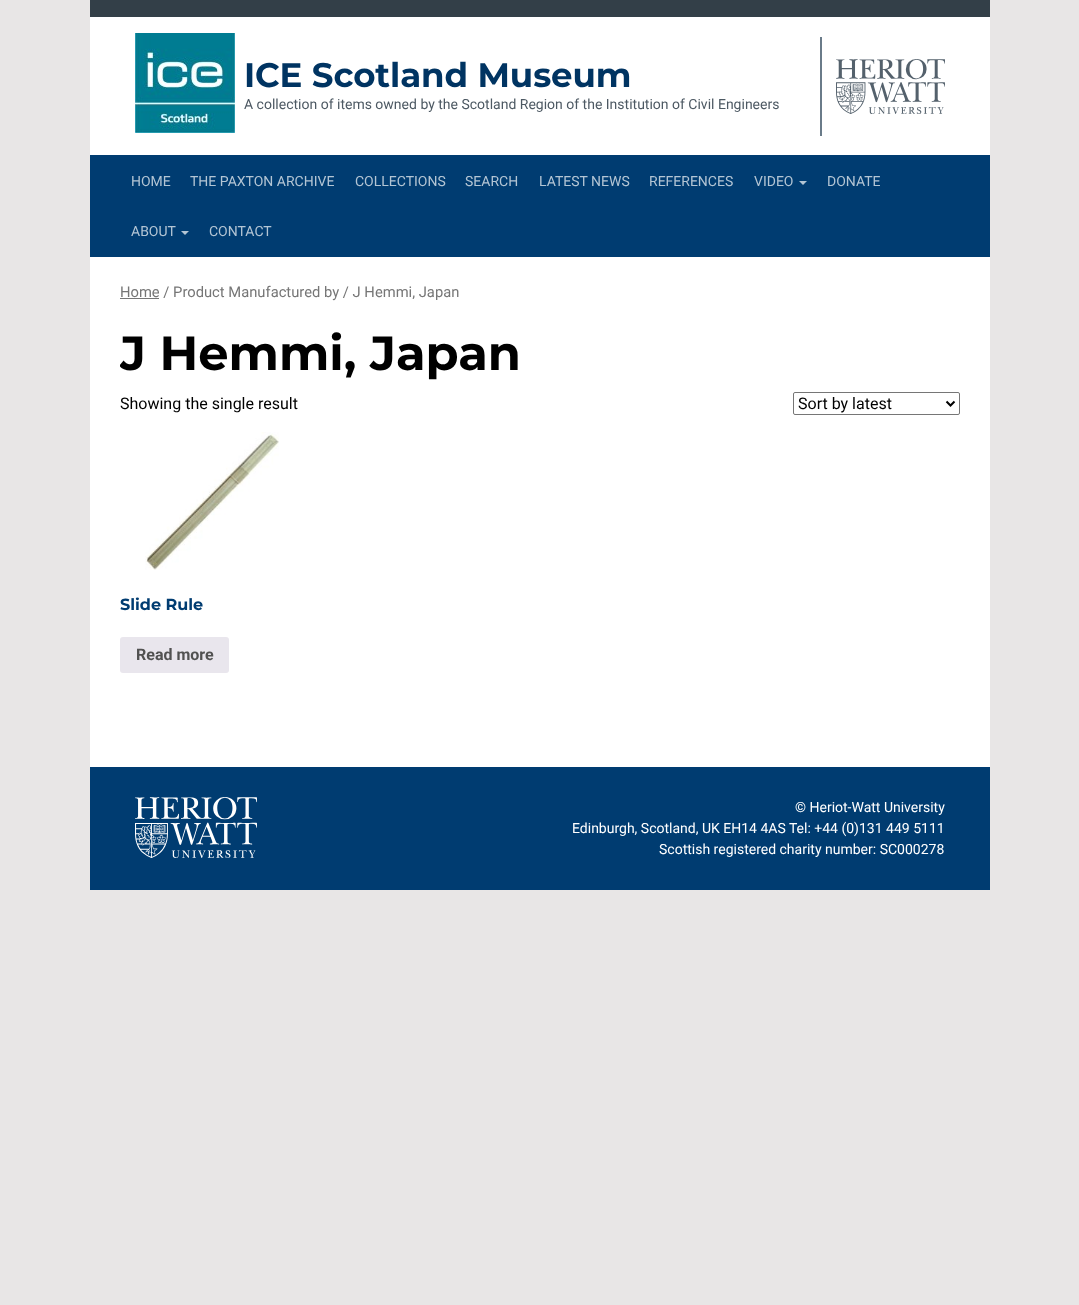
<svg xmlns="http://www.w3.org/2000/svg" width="1079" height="1305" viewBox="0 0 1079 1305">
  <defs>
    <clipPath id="clip1"><path d="M120 281h840v456H120z"/></clipPath>
  </defs>
  <rect width="100%" height="100%" fill="#e8e6e6"/>
  <path d="M90 17h900v750H90z" fill="#fff"/>
  <path d="M90 0h900v17H90z" fill="#333f48"/>
  <image x="135" y="33" width="100" height="100" href="img/1.png"/>
  <path d="M820 37h2v99H820z" fill="#6a7b89"/>
  <image x="836" y="59" width="109" height="55" href="img/2.png"/>
  <path d="M90 155h900v102H90z" fill="#003c71"/>
  <path d="M799 181H807L803 185Z" fill="#b3c5d4"/>
  <path d="M181 231H189L185 235Z" fill="#b3c5d4"/>
  <path d="M120 298h39v1H120z" fill="#767676"/>
  <rect x="793.5" y="392.5" width="166" height="22" rx="1.5" fill="none" stroke="#767676"/>
  <path d="M946.5 401.5L950.5 405.5L954.5 401.5" fill="none" stroke="#000" stroke-width="2"/>
  <image x="145" y="432" width="134" height="138" href="img/3.png"/>
  <rect x="120" y="637" width="109" height="36" rx="3" fill="#e9e6ed"/>
  <path d="M90 767h900v123H90z" fill="#003c71"/>
  <image x="135" y="797" width="122" height="61" href="img/4.png"/>
  <text x="244" y="87" font-family="Montserrat" font-size="34" font-weight="bold" letter-spacing="-0.1" fill="#003462">ICE Scotland Museum</text>
  <text x="244" y="109" font-family="Roboto" font-size="14" fill="#4d5963">A collection of items owned by the Scotland Region of the Institution of Civil Engineers</text>
  <g font-family="Roboto" font-size="14" fill="#b3c5d4">
    <text x="131" y="186">HOME</text>
    <text x="190" y="186">THE PAXTON ARCHIVE</text>
    <text x="355" y="186">COLLECTIONS</text>
    <text x="465" y="186">SEARCH</text>
    <text x="539" y="186">LATEST NEWS</text>
    <text x="649" y="186">REFERENCES</text>
    <text x="754" y="186">VIDEO</text>
    <text x="827" y="186">DONATE</text>
    <text x="131" y="236">ABOUT</text>
    <text x="209" y="236">CONTACT</text>
  </g>
  <text x="120" y="297" font-family="Roboto" font-size="14.75" fill="#767676">Home / Product Manufactured by / J Hemmi, Japan</text>
  <g clip-path="url(#clip1)">
    <text x="120" y="370" font-family="Montserrat" font-size="48" font-weight="bold" fill="#000">J Hemmi, Japan</text>
  </g>
  <g font-family="Roboto" font-size="16" fill="#000">
    <text x="120" y="409">Showing the single result</text>
    <text x="798" y="409">Sort by latest</text>
  </g>
  <text x="120" y="610" font-family="Montserrat" font-size="16" font-weight="bold" fill="#003c71">Slide Rule</text>
  <text x="136" y="660" font-family="Roboto" font-size="16" font-weight="bold" fill="#515151">Read more</text>
  <g font-family="Roboto" font-size="14" fill="#fff">
    <text x="795" y="812">© Heriot-Watt University</text>
    <text x="572" y="833">Edinburgh, Scotland, UK EH14 4AS Tel: +44 (0)131 449 5111</text>
    <text x="659" y="854">Scottish registered charity number: SC000278</text>
  </g>
</svg>
